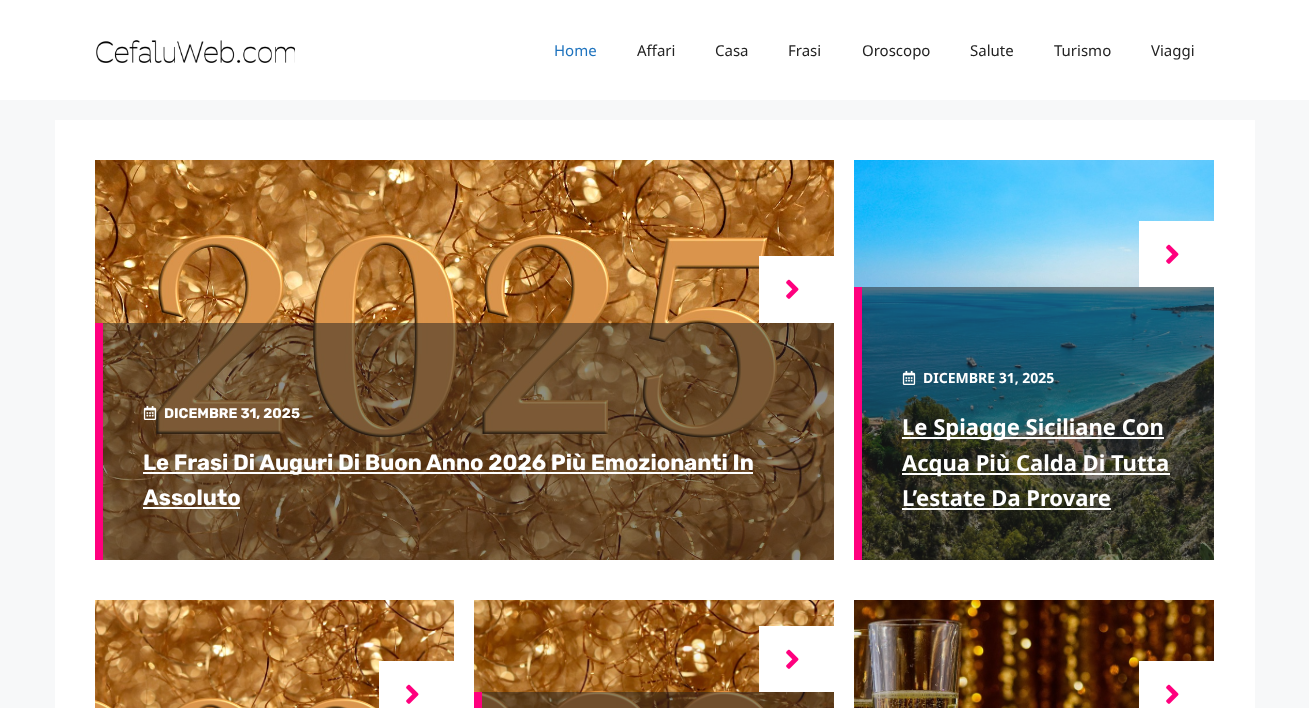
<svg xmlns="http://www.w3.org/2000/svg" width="1309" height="708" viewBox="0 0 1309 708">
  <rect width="100%" height="100%" fill="#f7f8f9"/>
  <path d="M0 0h1309v100H0z" fill="#fff"/>
  <image x="96" y="40" width="199" height="23" href="img/1.png"/>
  <path d="M55 120h1200v588H55z" fill="#fff"/>
  <image x="95" y="160" width="739" height="400" href="img/2.png"/>
  <path d="M759 256h75v67H759z" fill="#fff"/>
  <image x="786" y="279" width="13" height="20" href="img/3.png"/>
  <path d="M103 323h731v237H103z" fill="#21212182"/>
  <path d="M95 323h8v237H95z" fill="#ff007e"/>
  <image x="143" y="406" width="14" height="14" href="img/4.png"/>
  <path d="M143 472h610v2H143z" fill="#fff"/>
  <path d="M143 507h97v2H143z" fill="#fff"/>
  <image x="854" y="160" width="360" height="400" href="img/5.png"/>
  <path d="M1139 221h75v66H1139z" fill="#fff"/>
  <image x="1166" y="244" width="13" height="20" href="img/3.png"/>
  <path d="M862 287h352v273H862z" fill="#21212182"/>
  <path d="M854 287h8v273H854z" fill="#ff007e"/>
  <image x="902" y="371" width="14" height="14" href="img/6.png"/>
  <path d="M902 437h262v2H902z" fill="#fff"/>
  <path d="M902 473h268v2H902z" fill="#fff"/>
  <path d="M902 508h209v2H902z" fill="#fff"/>
  <image x="95" y="600" width="359" height="108" href="img/7.png"/>
  <path d="M379 661h75v47H379z" fill="#fff"/>
  <image x="406" y="684" width="13" height="20" href="img/3.png"/>
  <image x="474" y="600" width="360" height="108" href="img/8.png"/>
  <path d="M759 626h75v66H759z" fill="#fff"/>
  <image x="786" y="649" width="13" height="20" href="img/3.png"/>
  <path d="M482 692h352v16H482z" fill="#21212182"/>
  <path d="M474 692h8v16H474z" fill="#ff007e"/>
  <image x="854" y="600" width="360" height="108" href="img/9.png"/>
  <path d="M1139 661h75v47H1139z" fill="#fff"/>
  <image x="1166" y="684" width="13" height="20" href="img/3.png"/>
  <text x="554" y="56" font-family="Noto Sans" font-size="15" fill="#1e73be">Home</text>
  <g font-family="Noto Sans" font-size="15" fill="#222">
    <text x="637" y="56">Affari</text>
    <text x="715" y="56">Casa</text>
    <text x="788" y="56">Frasi</text>
    <text x="862" y="56">Oroscopo</text>
    <text x="970" y="56">Salute</text>
    <text x="1054" y="56">Turismo</text>
    <text x="1151" y="56">Viaggi</text>
  </g>
  <text x="164" y="418" font-family="Rubik" font-size="14" font-weight="bold" fill="#fff">DICEMBRE 31, 2025</text>
  <g font-family="Rubik" font-size="22" font-weight="bold" fill="#fff">
    <text x="143" y="470">Le Frasi Di Auguri Di Buon Anno 2026 Più Emozionanti In</text>
    <text x="143" y="505">Assoluto</text>
  </g>
  <text x="923" y="383" font-family="Noto Sans" font-size="14" font-weight="bold" fill="#fff">DICEMBRE 31, 2025</text>
  <g font-family="Noto Sans" font-size="22" font-weight="bold" fill="#fff">
    <text x="902" y="435">Le Spiagge Siciliane Con</text>
    <text x="902" y="471">Acqua Più Calda Di Tutta</text>
    <text x="902" y="506">L’estate Da Provare</text>
  </g>
</svg>
